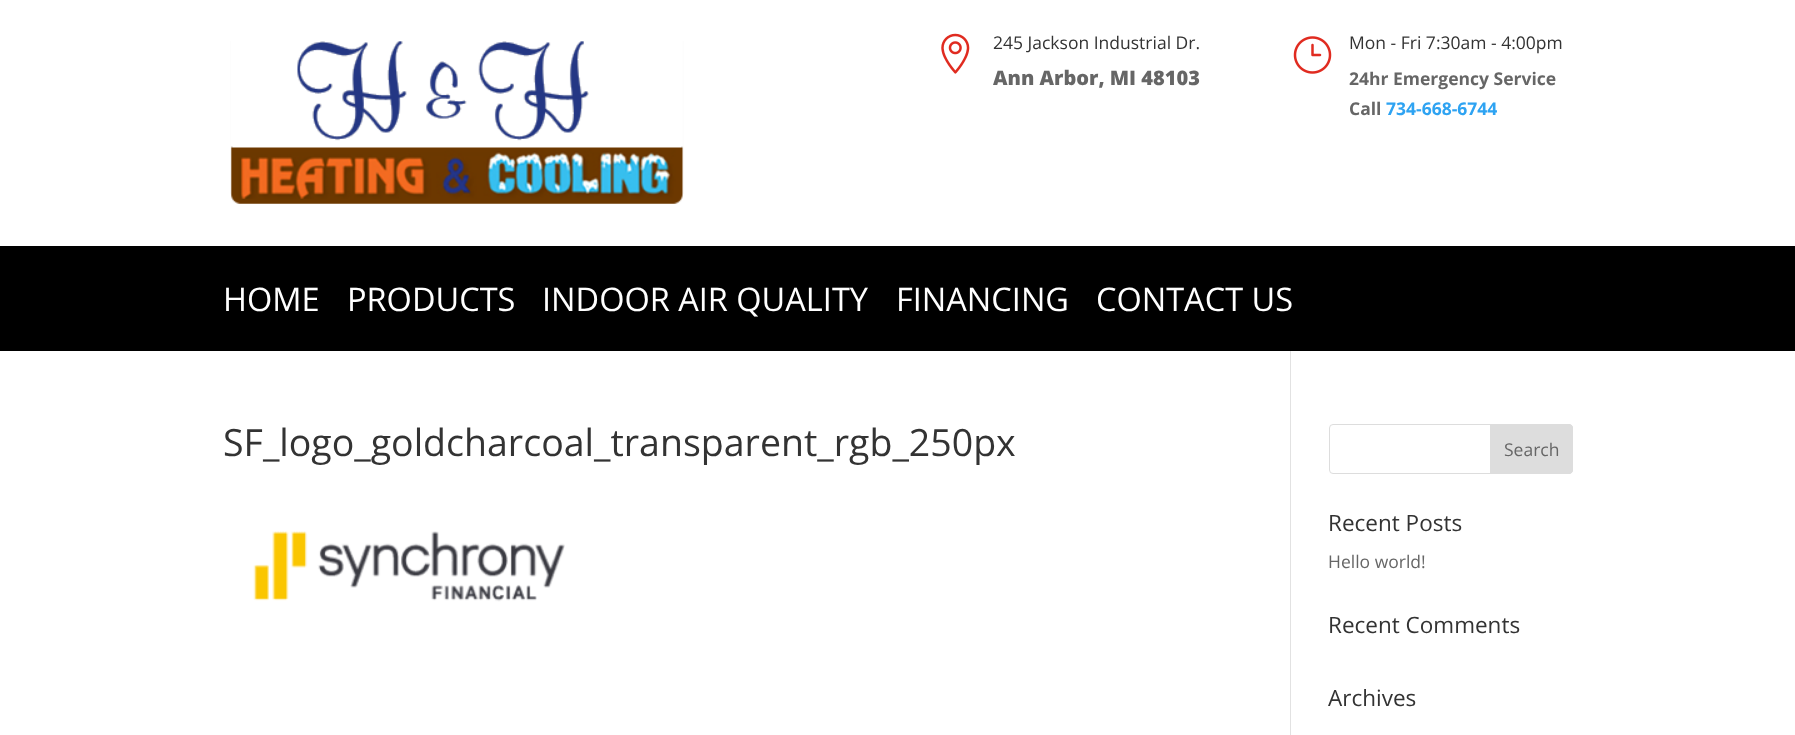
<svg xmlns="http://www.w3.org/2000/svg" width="1795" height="735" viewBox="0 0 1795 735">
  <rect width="100%" height="100%" fill="#fff"/>
  <image x="230" y="41" width="454" height="163" href="img/1.png"/>
  <image x="941" y="33" width="29" height="41" href="img/2.png"/>
  <image x="1293" y="36" width="39" height="38" href="img/3.png"/>
  <path d="M0 246h1795v105H0z" fill="#000"/>
  <path d="M1290 351h1v384H1290z" fill="#e2e2e2"/>
  <image x="253" y="531" width="312" height="71" href="img/4.png"/>
  <rect x="1329.5" y="424.5" width="243" height="49" rx="3.5" fill="none" stroke="#ddd"/>
  <path d="M1490.5 424.5H1569C1571 424.5 1572.5 426 1572.5 428V470C1572.5 472 1571 473.5 1569 473.5H1490.5Z" fill="#ddd" stroke="#ddd"/>
  <text x="993" y="49" font-family="Open Sans" font-size="17.5" fill="#333">245 Jackson Industrial Dr.</text>
  <text x="993" y="85" font-family="Open Sans" font-size="20" font-weight="800" fill="#666">Ann Arbor, MI 48103</text>
  <text x="1349" y="49" font-family="Open Sans" font-size="17.5" fill="#333">Mon - Fri 7:30am - 4:00pm</text>
  <g font-family="Open Sans" font-size="17.5" font-weight="bold" fill="#666">
    <text x="1349" y="85">24hr Emergency Service</text>
    <text x="1349" y="115">Call</text>
  </g>
  <text x="1386" y="115" font-family="Open Sans" font-size="17.5" font-weight="bold" fill="#2ea3f2">734-668-6744</text>
  <g font-family="Open Sans" font-size="32.5" fill="#fff">
    <text x="223" y="311">HOME</text>
    <text x="347" y="311">PRODUCTS</text>
    <text x="542" y="311">INDOOR AIR QUALITY</text>
    <text x="896" y="311">FINANCING</text>
    <text x="1096" y="311">CONTACT US</text>
  </g>
  <text x="223" y="456" font-family="Open Sans" font-size="37.5" fill="#333">SF_logo_goldcharcoal_transparent_rgb_250px</text>
  <text x="1504" y="456" font-family="Open Sans" font-size="17.5" fill="#666">Search</text>
  <text x="1328" y="531" font-family="Open Sans" font-size="22.5" fill="#333">Recent Posts</text>
  <text x="1328" y="568" font-family="Open Sans" font-size="17.5" fill="#666">Hello world!</text>
  <g font-family="Open Sans" font-size="22.5" fill="#333">
    <text x="1328" y="633">Recent Comments</text>
    <text x="1328" y="706">Archives</text>
  </g>
</svg>
